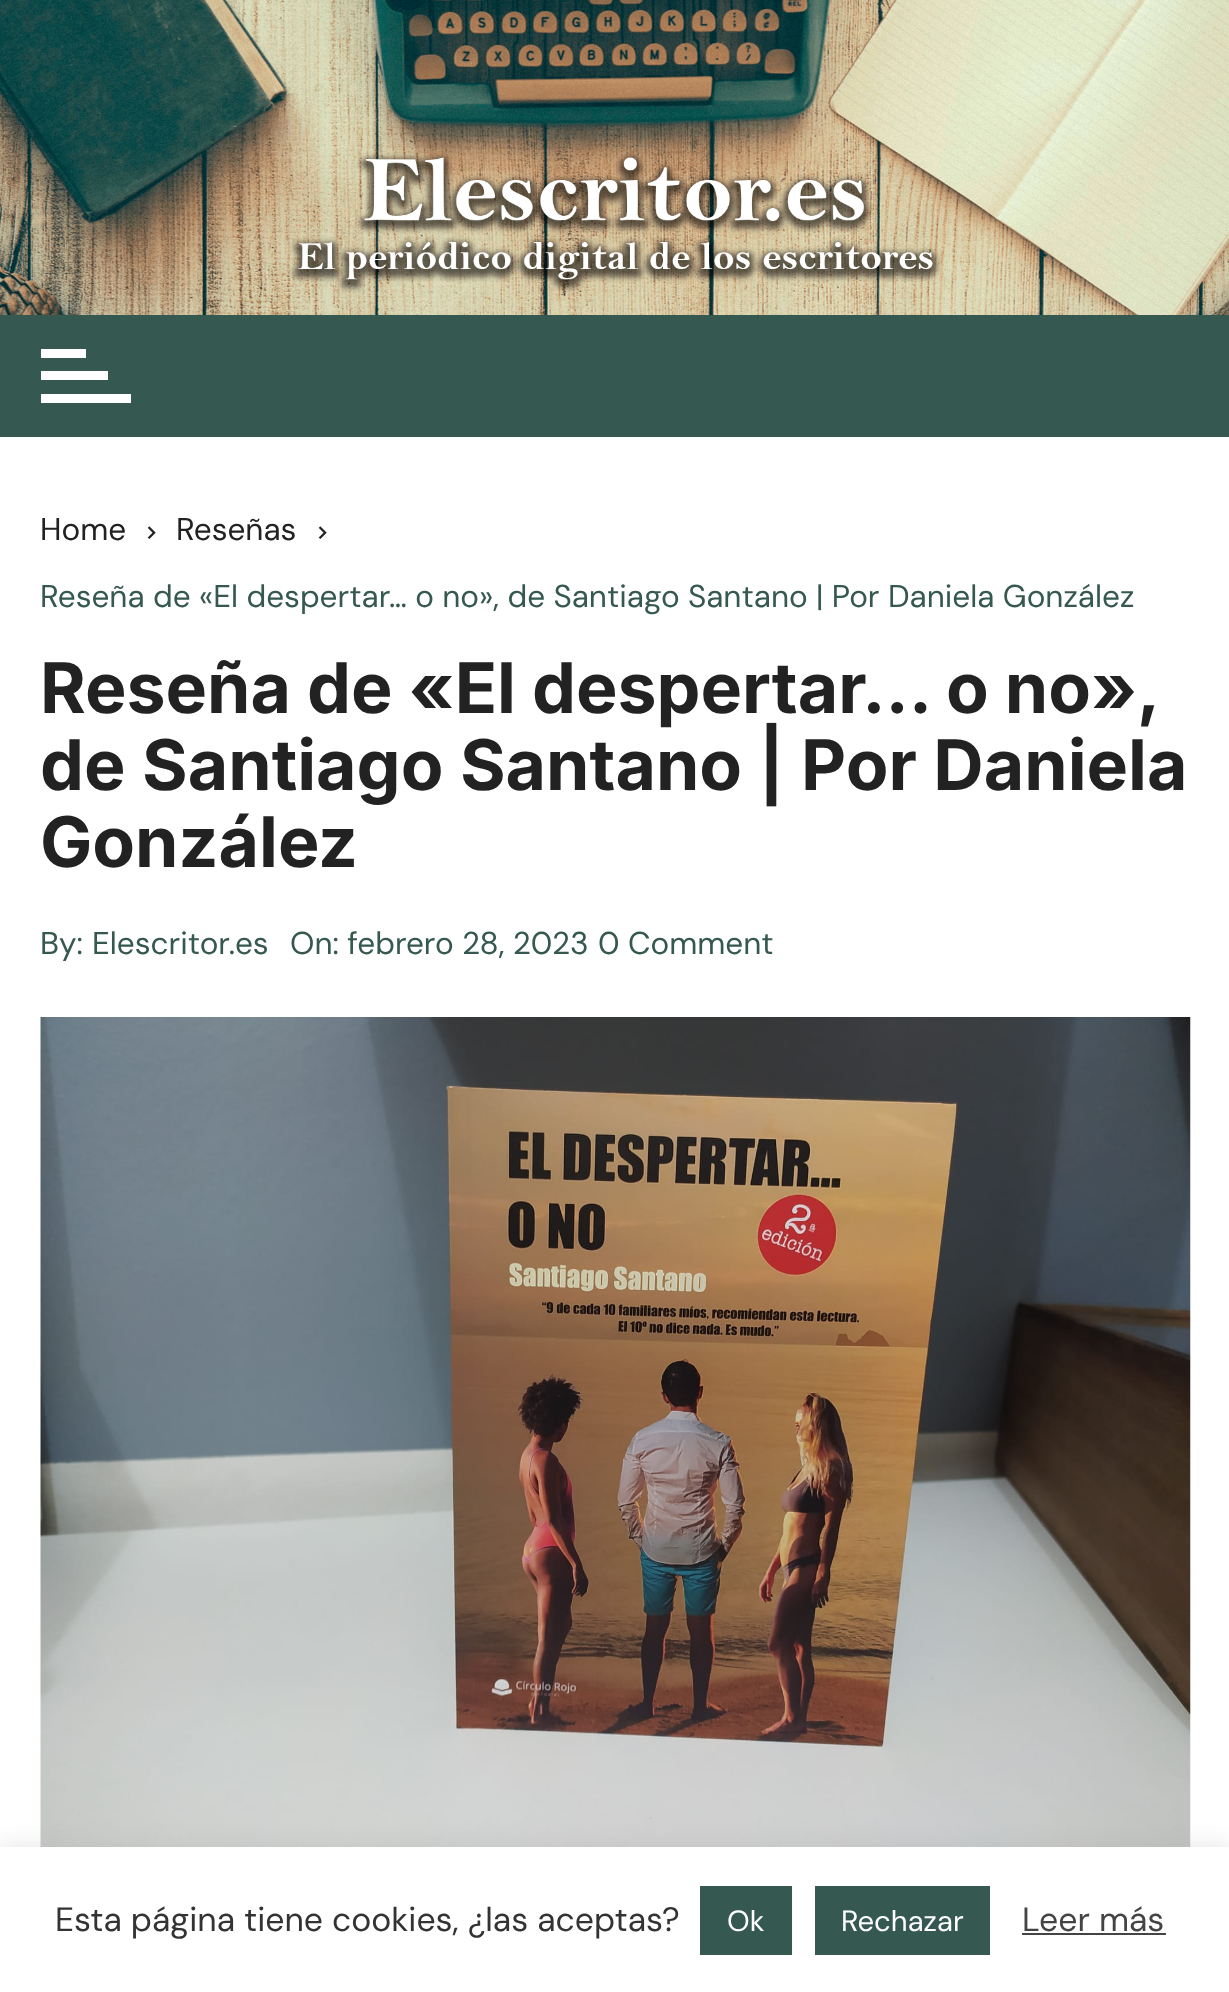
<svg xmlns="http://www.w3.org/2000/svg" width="1229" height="1992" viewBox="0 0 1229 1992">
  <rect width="100%" height="100%" fill="#fff"/>
  <image x="0" y="0" width="1229" height="315" href="img/1.png"/>
  <path d="M0 315h1229v122H0z" fill="#355851"/>
  <path d="M41 349h45v9H41z" fill="#fff"/>
  <path d="M41 371h67v9H41z" fill="#fff"/>
  <path d="M41 394h90v9H41z" fill="#fff"/>
  <image x="147" y="526" width="9" height="13" href="img/2.png"/>
  <image x="318" y="526" width="9" height="13" href="img/2.png"/>
  <image x="40" y="1017" width="1151" height="830" href="img/3.png"/>
  <path d="M0 1845h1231v146H0z" fill="#acabab4d" filter="blur(11px)"/>
  <path d="M0 1847h1229v145H0z" fill="#fff"/>
  <path d="M700 1886h92v69H700z" fill="#355851"/>
  <path d="M815 1886h175v69H815z" fill="#355851"/>
  <path d="M1022 1933h144v2H1022z" fill="#444"/>
  <g font-family="DM Sans" font-size="31.5" fill="#222">
    <text x="40" y="540">Home</text>
    <text x="176" y="540">Reseñas</text>
  </g>
  <text x="40" y="607" font-family="DM Sans" font-size="31.5" fill="#355851">Reseña de «El despertar… o no», de Santiago Santano | Por Daniela González</text>
  <g font-family="Inter" font-size="69.75" font-weight="bold" fill="#222">
    <text x="40" y="713" word-spacing="-0.5">Reseña de «El despertar… o no»,</text>
    <text x="40" y="790">de Santiago Santano | Por Daniela</text>
    <text x="40" y="867">González</text>
  </g>
  <g font-family="DM Sans" font-size="31.5" fill="#355851">
    <text x="40" y="954">By:</text>
    <text x="92" y="954">Elescritor.es</text>
    <text x="290" y="954">On: febrero 28, 2023</text>
    <text x="598" y="954">0 Comment</text>
  </g>
  <text x="55" y="1931" font-family="DM Sans" font-size="33.75" fill="#333">Esta página tiene cookies, ¿las aceptas?</text>
  <g font-family="DM Sans" font-size="29.25" fill="#fff">
    <text x="727" y="1931">Ok</text>
    <text x="841" y="1931">Rechazar</text>
  </g>
  <text x="1022" y="1931" font-family="DM Sans" font-size="33.75" fill="#444">Leer más</text>
</svg>
